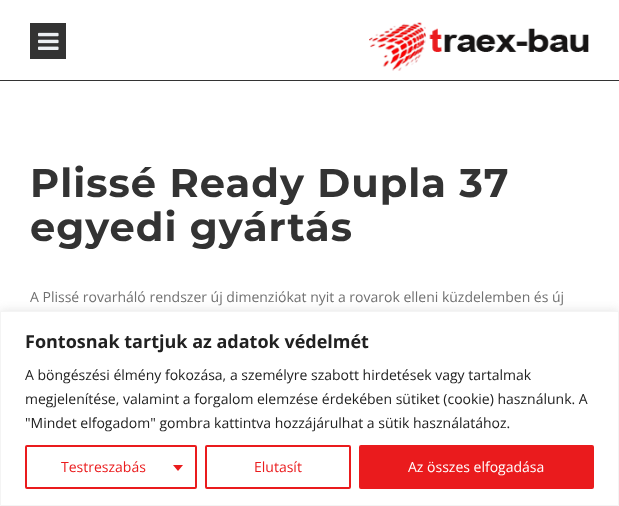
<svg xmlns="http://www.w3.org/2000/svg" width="619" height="506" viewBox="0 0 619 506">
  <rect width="100%" height="100%" fill="#fff"/>
  <path d="M0 80h619v1H0z" fill="#333"/>
  <path d="M30 23h36v36H30z" fill="#333"/>
  <image x="38" y="32" width="21" height="18" href="img/1.png"/>
  <image x="369" y="22" width="220" height="49" href="img/2.png"/>
  <path d="M0 310h619v195H0z" fill="#acabab4d" filter="blur(5px)"/>
  <path d="M0.5 311.5h618v194H0.5z" fill="#fff" stroke="#f4f4f4"/>
  <rect x="26" y="446" width="170" height="42" rx="1" fill="none" stroke="#ea1b1d" stroke-width="2"/>
  <path d="M173 465H183L178 471Z" fill="#ea1b1d"/>
  <rect x="206" y="446" width="144" height="42" rx="1" fill="none" stroke="#ea1b1d" stroke-width="2"/>
  <rect x="360" y="446" width="233" height="42" rx="1" fill="#ea1b1d" stroke="#ea1b1d" stroke-width="2"/>
  <g font-family="Montserrat" font-size="40" font-weight="bold" letter-spacing="1" fill="#333">
    <text x="30" y="197">Plissé Ready Dupla 37</text>
    <text x="30" y="241">egyedi gyártás</text>
  </g>
  <text x="30" y="302" font-family="Open Sans" font-size="14" fill="#707070">A Plissé rovarháló rendszer új dimenziókat nyit a rovarok elleni küzdelemben és új</text>
  <text x="25" y="348" font-family="Open Sans" font-size="18" font-weight="bold" fill="#212121">Fontosnak tartjuk az adatok védelmét</text>
  <g font-family="Open Sans" font-size="14" fill="#212121">
    <text x="25" y="380">A böngészési élmény fokozása, a személyre szabott hirdetések vagy tartalmak</text>
    <text x="25" y="404">megjelenítése, valamint a forgalom elemzése érdekében sütiket (cookie) használunk. A</text>
    <text x="25" y="428">"Mindet elfogadom" gombra kattintva hozzájárulhat a sütik használatához.</text>
  </g>
  <g font-family="Open Sans" font-size="14" fill="#ea1b1d">
    <text x="61" y="472">Testreszabás</text>
    <text x="254" y="472">Elutasít</text>
  </g>
  <text x="408" y="472" font-family="Open Sans" font-size="14" fill="#fff">Az összes elfogadása</text>
</svg>
